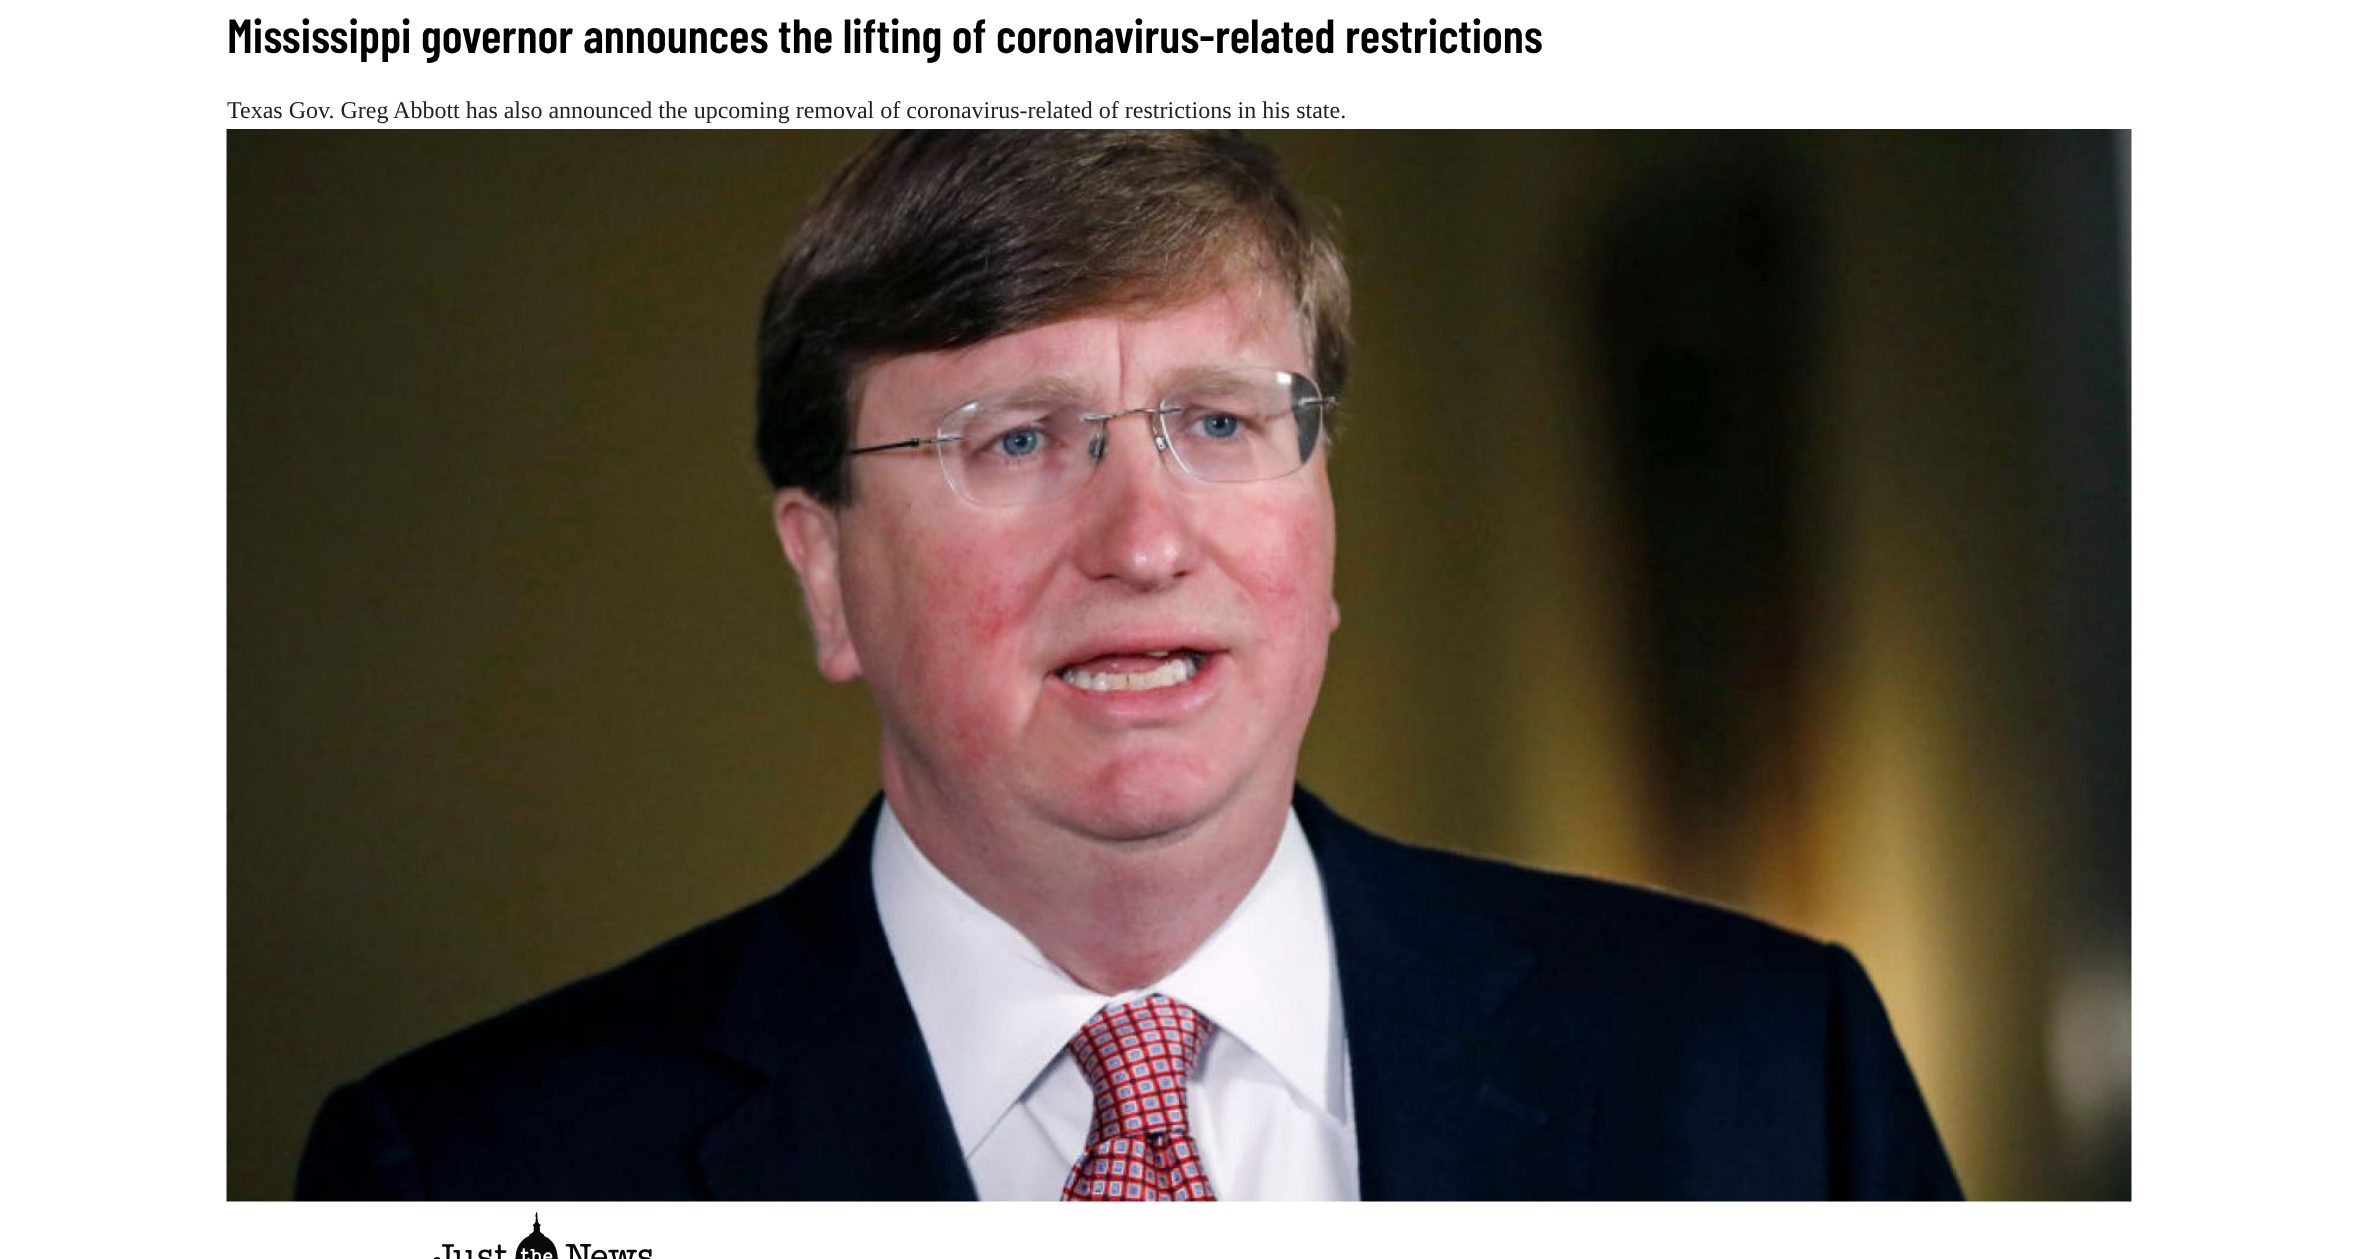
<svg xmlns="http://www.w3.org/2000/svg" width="2358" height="1259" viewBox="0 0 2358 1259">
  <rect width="100%" height="100%" fill="#fff"/>
  <image x="226" y="129" width="1906" height="1073" href="img/1.png"/>
  <image x="434" y="1212" width="218" height="47" href="img/2.png"/>
  <text x="227" y="53" font-family="Barlow Condensed" font-size="48" font-weight="600" fill="#000">Mississippi governor announces the lifting of coronavirus-related restrictions</text>
  <text x="227" y="118" font-family="Liberation Serif" font-size="24" fill="#222">Texas Gov. Greg Abbott has also announced the upcoming removal of coronavirus-related of restrictions in his state.</text>
</svg>
